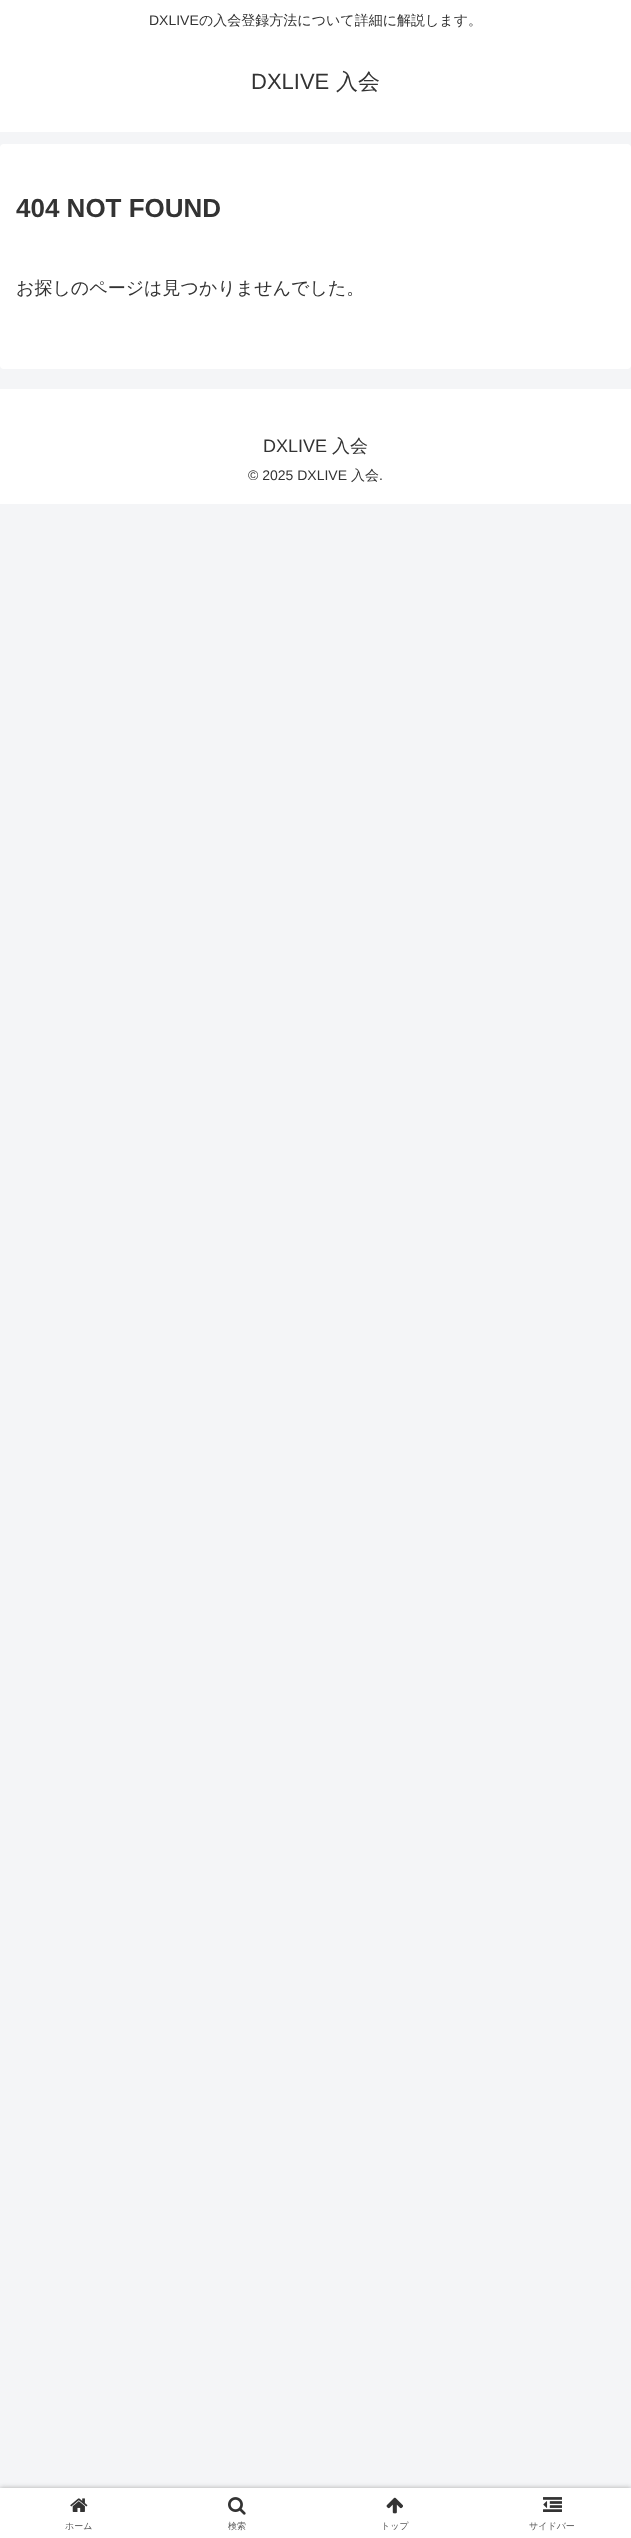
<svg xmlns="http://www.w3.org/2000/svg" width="631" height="2538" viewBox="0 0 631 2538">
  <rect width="100%" height="100%" fill="#f4f5f7"/>
  <path d="M0 0h631v132H0z" fill="#fff"/>
  <rect y="144" width="631" height="225" rx="4" fill="#fff"/>
  <path d="M0 389h631v115H0z" fill="#fff"/>
  <path d="M0 2488h631v50H0z" fill="#a9a9a9" filter="blur(2.5px)"/>
  <path d="M0 2488h631v50H0z" fill="#fff"/>
  <image x="70" y="2498" width="18" height="14" href="img/1.png"/>
  <image x="228" y="2497" width="18" height="18" href="img/2.png"/>
  <image x="386" y="2497" width="17" height="17" href="img/3.png"/>
  <image x="543" y="2497" width="19" height="15" href="img/4.png"/>
  <text x="149" y="25" font-family="Liberation Sans" font-size="14" fill="#333">DXLIVE</text>
  <text x="199" y="25" font-family="WenQuanYi Zen Hei" font-size="14" font-weight="500" fill="#333">の入会登録方法について詳細に解説します。</text>
  <text x="251" y="89" font-family="Liberation Sans" font-size="22" fill="#333">DXLIVE</text>
  <text x="336" y="89" font-family="WenQuanYi Zen Hei" font-size="22" font-weight="500" fill="#333">入会</text>
  <text x="16" y="217" font-family="Liberation Sans" font-size="26" font-weight="bold" fill="#333">404 NOT FOUND</text>
  <text x="16" y="294" font-family="WenQuanYi Zen Hei" font-size="18" font-weight="500" fill="#333">お探しのページは見つかりませんでした。</text>
  <text x="263" y="452" font-family="Liberation Sans" font-size="18" fill="#333">DXLIVE</text>
  <text x="332" y="452" font-family="WenQuanYi Zen Hei" font-size="18" font-weight="500" fill="#333">入会</text>
  <text x="248" y="480" font-family="Liberation Sans" font-size="14" fill="#333">© 2025 DXLIVE</text>
  <text x="351" y="480" font-family="WenQuanYi Zen Hei" font-size="14" font-weight="500" fill="#333">入会</text>
  <text x="379" y="480" font-family="Liberation Sans" font-size="14" fill="#333">.</text>
  <g font-family="WenQuanYi Zen Hei" font-size="9" font-weight="500" fill="#5c5c5c">
    <text x="65" y="2529">ホーム</text>
    <text x="228" y="2529">検索</text>
    <text x="381" y="2529">トップ</text>
    <text x="529" y="2529">サイドバー</text>
  </g>
</svg>
